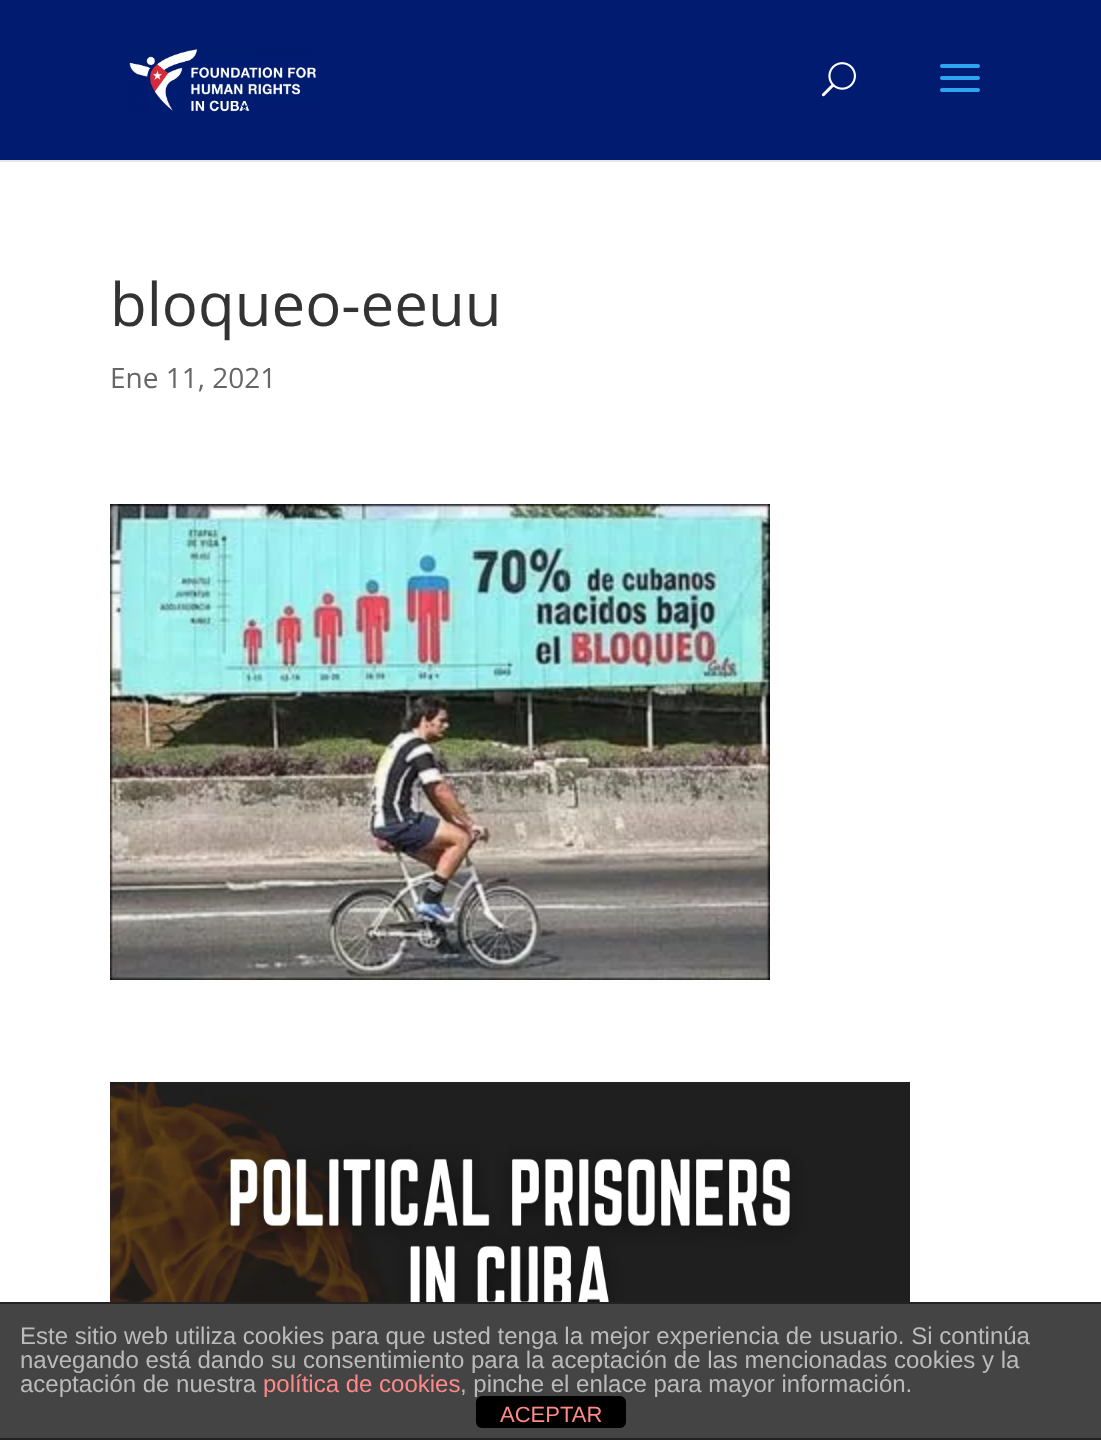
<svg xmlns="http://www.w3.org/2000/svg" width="1101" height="1440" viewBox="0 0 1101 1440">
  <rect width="100%" height="100%" fill="#fff"/>
  <path d="M0 160h1101v2H0z" fill="#e6e6e6"/>
  <path d="M0 0h1101v160H0z" fill="#001b70"/>
  <image x="129" y="49" width="187" height="63" href="img/1.png"/>
  <image x="821" y="62" width="35" height="35" href="img/2.png"/>
  <image x="940" y="64" width="40" height="28" href="img/3.png"/>
  <image x="110" y="504" width="660" height="476" href="img/4.png"/>
  <image x="110" y="1082" width="800" height="220" href="img/5.png"/>
  <path d="M0 1304h1101v134H0z" fill="#444"/>
  <path d="M0 1302h1101v2H0z" fill="#222"/>
  <path d="M0 1438h1101v2H0z" fill="#222"/>
  <rect x="476" y="1396" width="150" height="32" rx="6" fill="#000"/>
  <text x="110" y="326" font-family="Open Sans" font-size="60" fill="#333">bloqueo-eeuu</text>
  <text x="110" y="388" font-family="Open Sans" font-size="28" fill="#666">Ene 11, 2021</text>
  <g font-family="Liberation Sans" font-size="24" fill="#bbb">
    <text x="20" y="1344">Este sitio web utiliza cookies para que usted tenga la mejor experiencia de usuario. Si continúa</text>
    <text x="20" y="1368">navegando está dando su consentimiento para la aceptación de las mencionadas cookies y la</text>
    <text x="20" y="1392">aceptación de nuestra</text>
  </g>
  <text x="263" y="1392" font-family="Liberation Sans" font-size="24" fill="#f88">política de cookies</text>
  <text x="460" y="1392" font-family="Liberation Sans" font-size="24" fill="#bbb">, pinche el enlace para mayor información.</text>
  <text x="500" y="1422" font-family="Liberation Sans" font-size="22" fill="#f88">ACEPTAR</text>
</svg>
